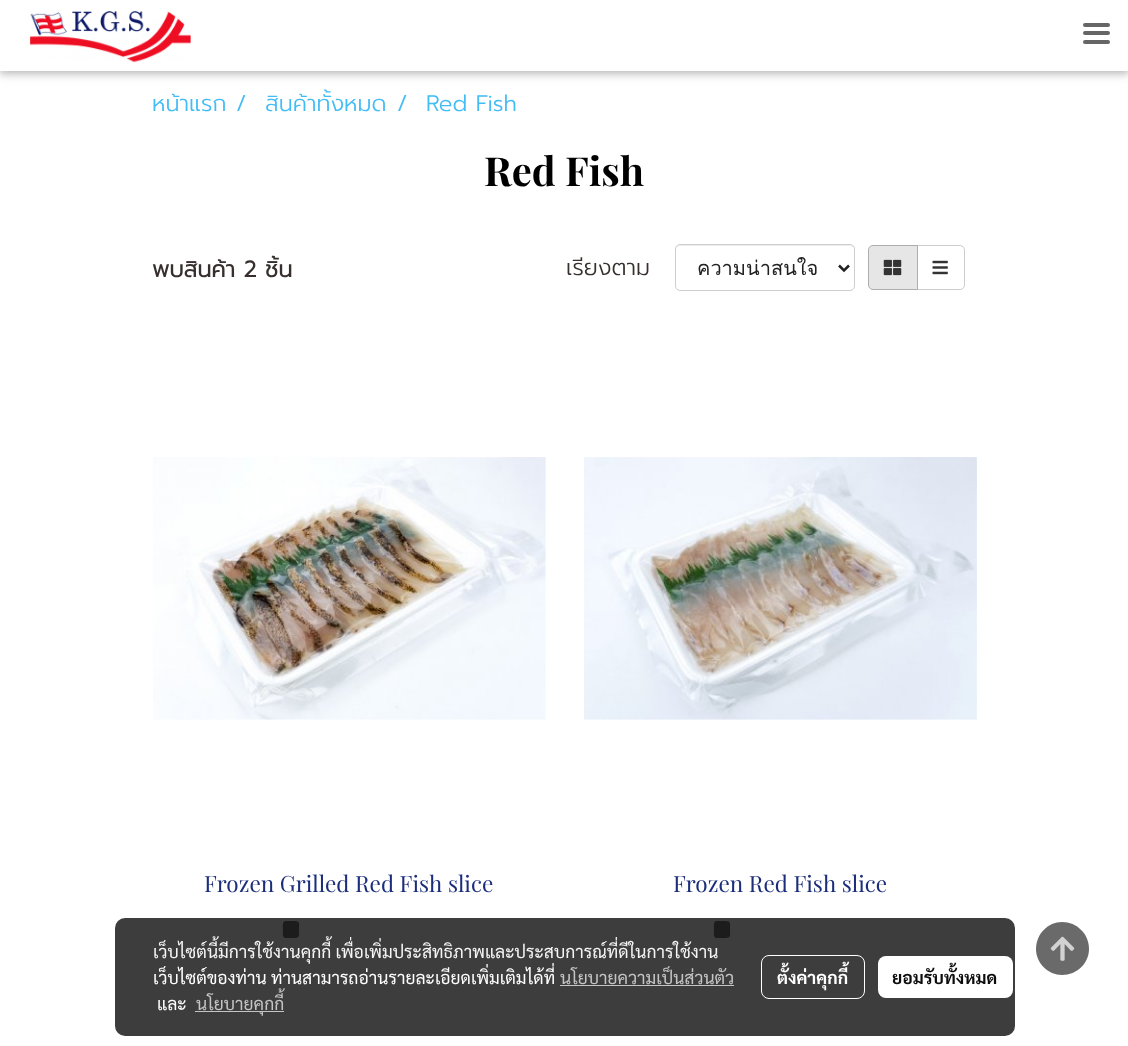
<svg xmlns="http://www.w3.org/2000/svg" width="1128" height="1046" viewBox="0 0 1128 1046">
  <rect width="100%" height="100%" fill="#fff"/>
  <path d="M0 3h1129v71H0z" fill="#0000001f" filter="blur(6px)"/>
  <path d="M0 3h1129v71H0z" fill="#00000029" filter="blur(3px)"/>
  <path d="M0 0h1128v71H0z" fill="#fff"/>
  <image x="30" y="11" width="161" height="52" href="img/1.png"/>
  <rect x="1083" y="31" width="27" height="4" rx="2" fill="#666"/>
  <rect x="1083" y="23" width="27" height="4" rx="2" fill="#666"/>
  <rect x="1083" y="40" width="27" height="4" rx="2" fill="#666"/>
  <path d="M680 246H850C852 246 854 248 854 250V249C854 247 852 245 850 245H680C678 245 676 247 676 249V250C676 248 678 246 680 246Z" fill="#ececec"/>
  <rect x="675.5" y="244.5" width="179" height="46" rx="4.5" fill="none" stroke="#cdced2"/>
  <path d="M839 265.5L844 270.5L849 265.5" fill="none" stroke="#212121" stroke-width="2.5"/>
  <path d="M916.5 245.5H960C962.5 245.5 964.5 247.5 964.5 250V285C964.5 287.5 962.5 289.5 960 289.5H916.5Z" fill="none" stroke="#ccc"/>
  <path d="M873 245.5H917.5V289.5H873C870.5 289.5 868.5 287.5 868.5 285V250C868.5 247.5 870.5 245.5 873 245.5Z" fill="#e6e6e6" stroke="#adadad"/>
  <image x="883" y="259" width="19" height="17" href="img/2.png"/>
  <image x="932" y="260" width="16" height="15" href="img/3.png"/>
  <image x="153" y="457" width="393" height="263" href="img/4.png"/>
  <path d="M285.5 921H294.5C300.5 921 299 924 299 929.5C299 935 300.5 938 294.5 938H285.5C282 938 283 932 283 929.5C283 927.5 282 921 285.5 921Z" fill="#767676"/>
  <image x="584" y="457" width="393" height="263" href="img/5.png"/>
  <path d="M716.5 921H725.5C731.5 921 730 924 730 929.5C730 935 731.5 938 725.5 938H716.5C713 938 714 932 714 929.5C714 927.5 713 921 716.5 921Z" fill="#767676"/>
  <rect x="115" y="918" width="900" height="118" rx="10" fill="#000000c2"/>
  <path d="M560 985h174v1H560z" fill="#c5c5c5"/>
  <path d="M195 1011h89v1H195z" fill="#c5c5c5"/>
  <rect x="761.5" y="955.5" width="103" height="43" rx="7.5" fill="none" stroke="#fff"/>
  <rect x="878" y="956" width="135" height="42" rx="8" fill="#fff"/>
  <path d="M1062 922C1048 922 1036 934 1036 949C1036 963 1048 975 1062 975C1077 975 1089 963 1089 949C1089 934 1077 922 1062 922Z" fill="#6b6a6a"/>
  <image x="1050" y="936" width="25" height="25" href="img/6.png"/>
  <g font-family="Prompt" font-size="22.5" font-weight="300" fill="#41bcf5">
    <text x="152" y="111">หน้าแรก</text>
    <text x="236" y="111">/</text>
    <text x="265" y="111">สินค้าทั้งหมด</text>
    <text x="397" y="111">/</text>
    <text x="426" y="111">Red Fish</text>
  </g>
  <text x="484" y="186" font-family="Playfair Display" font-size="40" font-weight="bold" fill="#000">Red Fish</text>
  <text x="152" y="277" font-family="Prompt" font-size="22.5" font-weight="bold" fill="#362f2d">พบสินค้า 2 ชิ้น</text>
  <text x="566" y="275" font-family="Prompt" font-size="22.5" font-weight="300" fill="#362f2d">เรียงตาม</text>
  <text x="697" y="275" font-family="Loma" font-size="20" fill="#212121">ความน่าสนใจ</text>
  <g font-family="Playfair Display" font-size="22.5" fill="#1c2e7b">
    <text x="204" y="892">Frozen Grilled Red Fish slice</text>
    <text x="673" y="892">Frozen Red Fish slice</text>
  </g>
  <text x="153" y="958" font-family="Sarabun" font-size="17.5" fill="#f5f5f5">เว็บไซต์นี้มีการใช้งานคุกกี้ เพื่อเพิ่มประสิทธิภาพและประสบการณ์ที่ดีในการใช้งาน</text>
  <text x="153" y="984" font-family="Sarabun" font-size="17.5" fill="#fff">เว็บไซต์ของท่าน ท่านสามารถอ่านรายละเอียดเพิ่มเติมได้ที่</text>
  <text x="560" y="984" font-family="Sarabun" font-size="17.5" fill="#c5c5c5">นโยบายความเป็นส่วนตัว</text>
  <text x="157" y="1010" font-family="Sarabun" font-size="17.5" fill="#fff">และ</text>
  <text x="196" y="1010" font-family="Sarabun" font-size="17.5" fill="#c5c5c5">นโยบายคุกกี้</text>
  <text x="777" y="984" font-family="Sarabun" font-size="17.5" font-weight="bold" fill="#fff">ตั้งค่าคุกกี้</text>
  <text x="892" y="984" font-family="Sarabun" font-size="17.5" font-weight="bold" fill="#0d0d0d">ยอมรับทั้งหมด</text>
</svg>
